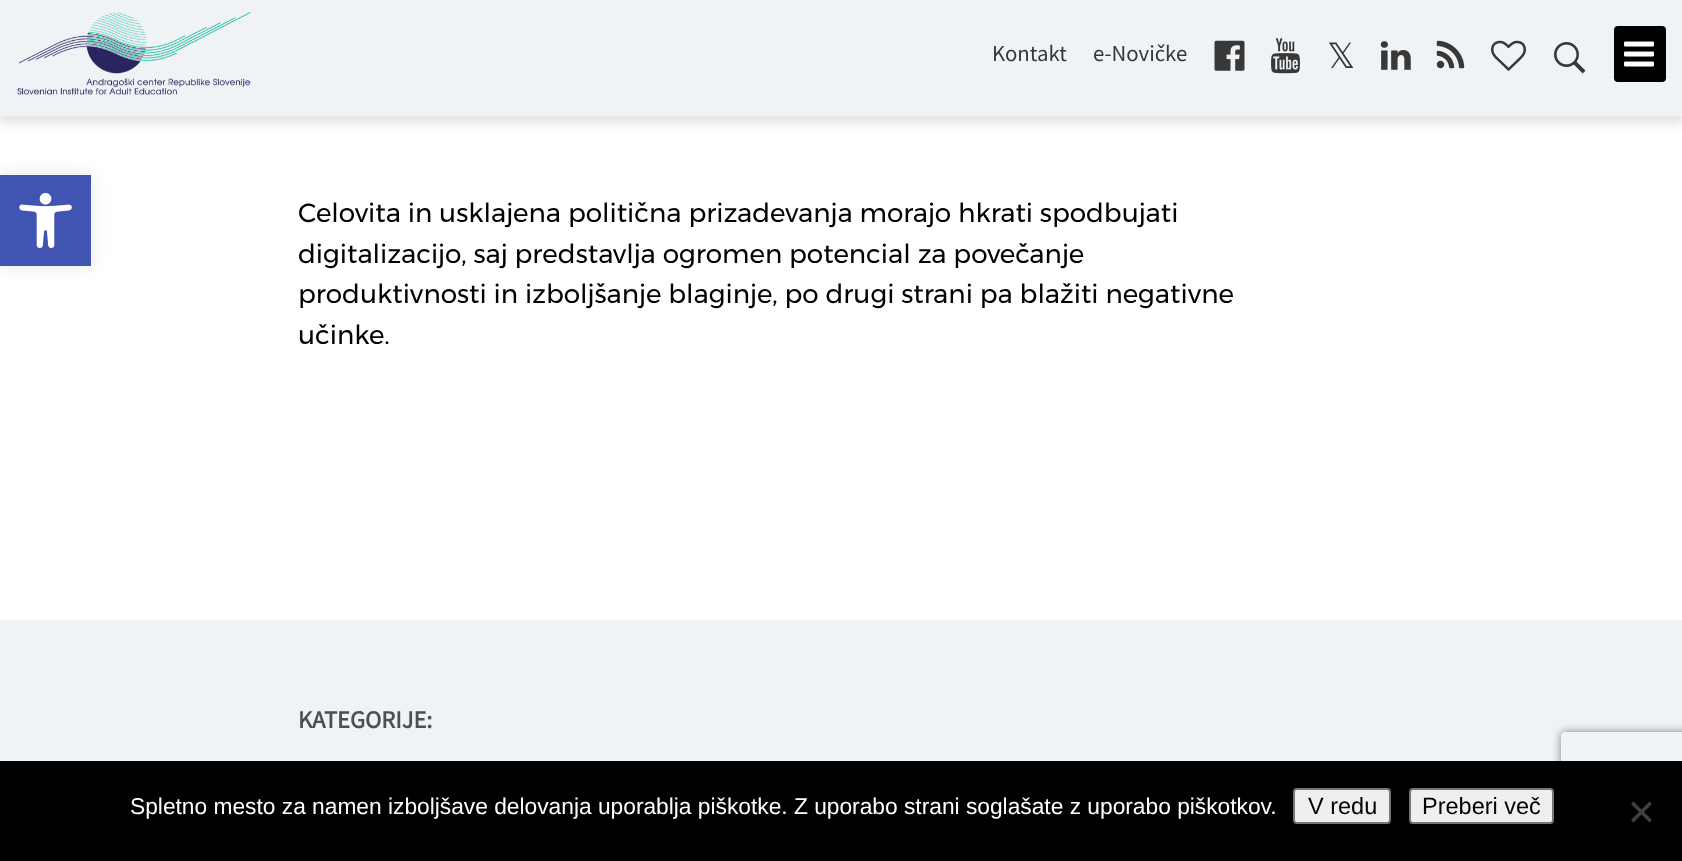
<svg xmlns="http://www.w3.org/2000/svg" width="1682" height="861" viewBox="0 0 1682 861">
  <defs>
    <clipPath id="clip1"><path d="M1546 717H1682V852H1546ZM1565 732H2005C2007 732 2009 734 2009 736V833C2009 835 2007 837 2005 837H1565C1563 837 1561 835 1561 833V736C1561 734 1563 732 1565 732Z" clip-rule="evenodd"/></clipPath>
  </defs>
  <rect width="100%" height="100%" fill="#fff"/>
  <path d="M0 9h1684v115H0z" fill="#0000001a" filter="blur(4.5px)"/>
  <path d="M0 0h1682v116H0z" fill="#eff3f5"/>
  <image x="17" y="12" width="234" height="83" href="img/1.png"/>
  <image x="1214" y="40" width="31" height="31" href="img/2.png"/>
  <image x="1271" y="38" width="29" height="36" href="img/3.png"/>
  <image x="1380" y="41" width="31" height="29" href="img/4.png"/>
  <image x="1436" y="40" width="29" height="29" href="img/5.png"/>
  <image x="1491" y="40" width="35" height="31" href="img/6.png"/>
  <image x="1554" y="42" width="32" height="32" href="img/7.png"/>
  <rect x="1615" y="27" width="50" height="54" rx="3" fill="#000" stroke="#000" stroke-width="2"/>
  <image x="1624" y="41" width="30" height="26" href="img/8.png"/>
  <path d="M0 175h91v91H0z" fill="#0000001a" filter="blur(9px)"/>
  <path d="M0 175h91v91H0z" fill="#4054b2"/>
  <image x="19" y="193" width="53" height="56" href="img/9.png"/>
  <path d="M0 620h1682v141H0z" fill="#eff3f5"/>
  <g clip-path="url(#clip1)">
    <rect x="1561" y="732" width="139" height="105" rx="4" fill="#808080" filter="blur(4.5px)"/>
  </g>
  <path d="M0 761h1682v100H0z" fill="#000"/>
  <rect x="1294" y="789" width="96" height="34" rx="3" fill="#efefef" stroke="#767676" stroke-width="2"/>
  <rect x="1410" y="789" width="143" height="34" rx="3" fill="#efefef" stroke="#767676" stroke-width="2"/>
  <path d="M1649.5 801.5L1652 804L1633.5 822.5L1631 820Z" fill="#404040"/>
  <path d="M1631 804L1633.5 801.5L1652 820L1649.5 822.5Z" fill="#404040"/>
  <g font-family="Source Sans Pro" font-size="22.75" fill="#383838">
    <text x="992" y="61">Kontakt</text>
    <text x="1093" y="61">e-Novičke</text>
  </g>
  <text x="1327" y="68" font-family="DejaVu Sans" font-size="35" fill="#383838">𝕏</text>
  <g font-family="Montserrat" font-size="26.25" fill="#000">
    <text x="298" y="222">Celovita in usklajena politična prizadevanja morajo hkrati spodbujati</text>
    <text x="298" y="263">digitalizacijo, saj predstavlja ogromen potencial za povečanje</text>
    <text x="298" y="303">produktivnosti in izboljšanje blaginje, po drugi strani pa blažiti negativne</text>
    <text x="298" y="344">učinke.</text>
  </g>
  <text x="298" y="728" font-family="Source Sans Pro" font-size="24.5" font-weight="bold" fill="#4f4f4f">KATEGORIJE:</text>
  <text x="130" y="814" font-family="Liberation Sans" font-size="22.75" fill="#fff">Spletno mesto za namen izboljšave delovanja uporablja piškotke. Z uporabo strani soglašate z uporabo piškotkov.</text>
  <g font-family="Liberation Sans" font-size="23.5" fill="#000">
    <text x="1308" y="814">V redu</text>
    <text x="1422" y="814">Preberi več</text>
  </g>
</svg>
